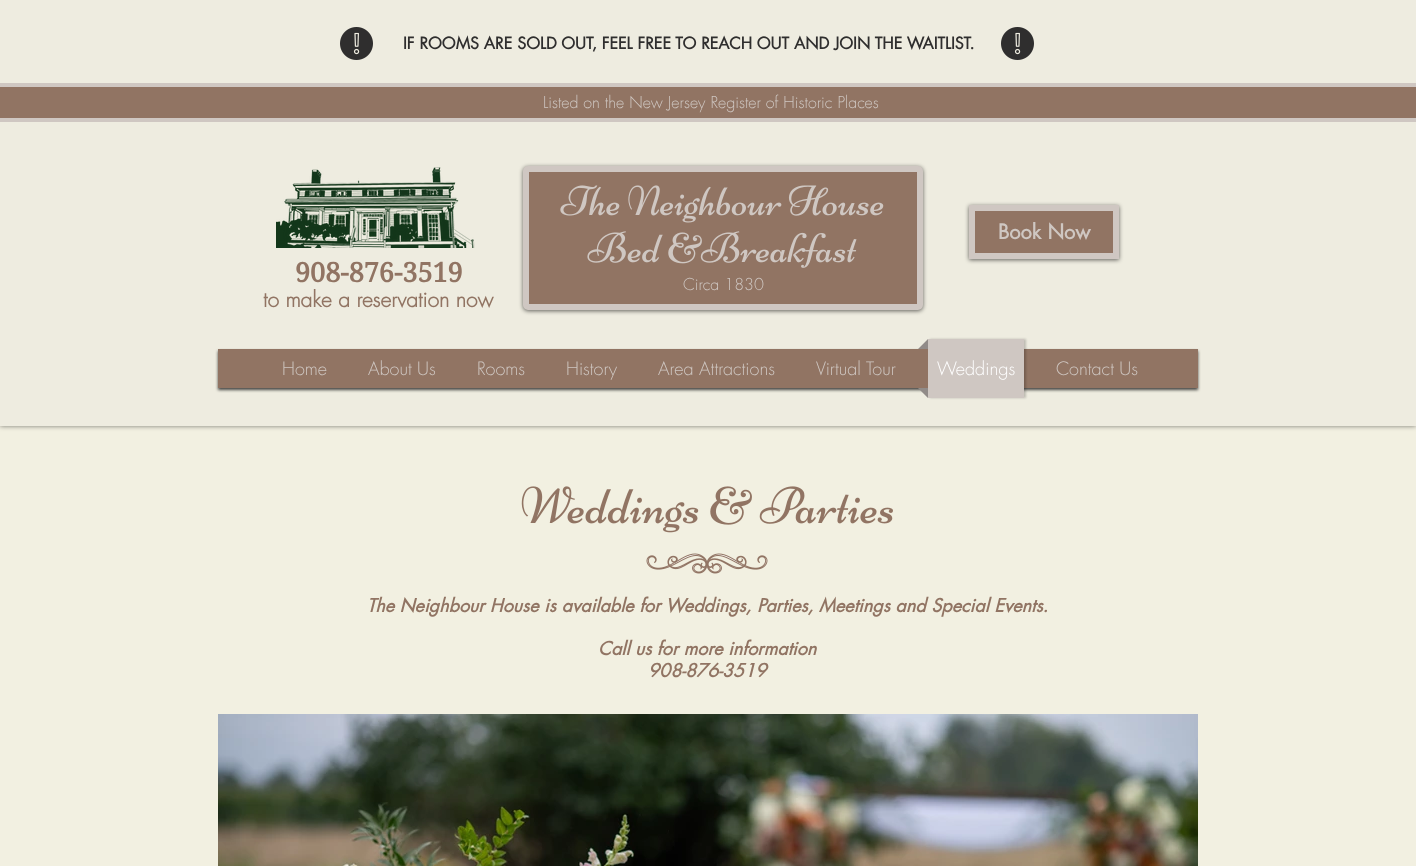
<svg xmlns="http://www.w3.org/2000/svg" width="1416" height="866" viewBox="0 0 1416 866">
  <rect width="100%" height="100%" fill="#f2f0e1"/>
  <path d="M0 0h1416v426H0z" fill="#00000080" filter="blur(2.5px)"/>
  <path d="M0 0h1416v426H0z" fill="#eeece0"/>
  <image x="340" y="27" width="33" height="33" href="img/1.png"/>
  <image x="1001" y="27" width="33" height="33" href="img/1.png"/>
  <path d="M0 87h1416v31H0z" fill="#917463"/>
  <path d="M0 83h1416v4H0z" fill="#cfc7c2"/>
  <path d="M0 118h1416v4H0z" fill="#cfc7c2"/>
  <image x="276" y="167" width="199" height="81" href="img/2.png"/>
  <path d="M969 206h150v54H969z" fill="#00000099" filter="blur(2px)"/>
  <path d="M972 208h144v48H972z" fill="#917463" stroke="#cfc7c2" stroke-width="6"/>
  <rect x="523" y="167" width="400" height="144" rx="5" fill="#00000099" filter="blur(2px)"/>
  <rect x="526" y="169" width="394" height="138" rx="2" fill="#917463" stroke="#cfc7c2" stroke-width="6"/>
  <image x="560" y="185" width="60" height="31" href="img/3.png"/>
  <image x="628" y="185" width="154" height="38" href="img/4.png"/>
  <image x="788" y="185" width="96" height="31" href="img/5.png"/>
  <image x="587" y="231" width="270" height="37" href="img/6.png"/>
  <path d="M218 351h980v39H218z" fill="#000000b3" filter="blur(1.5px)"/>
  <path d="M218 349h980v39H218z" fill="#917463"/>
  <path d="M930 339h96v59H930z" fill="#00000033" filter="blur(1px)"/>
  <path d="M928 349H918L928 339ZM918 388H928V398Z" fill="#918b88"/>
  <path d="M928 339h96v59H928z" fill="#cfc7c2"/>
  <image x="521" y="486" width="372" height="47" href="img/7.png"/>
  <image x="646" y="553" width="122" height="21" href="img/8.png"/>
  <image x="218" y="714" width="980" height="152" href="img/9.png"/>
  <text x="403" y="49" font-family="futura" font-size="16" font-weight="bold" fill="#2f2e2e">IF ROOMS ARE SOLD OUT, FEEL FREE TO REACH OUT AND JOIN THE WAITLIST.</text>
  <text x="543" y="108" font-family="futura" font-size="16" font-weight="300" fill="#cfc7c2">Listed on the New Jersey Register of Historic Places</text>
  <text x="998" y="239" font-family="futura" font-size="20" font-weight="bold" fill="#cfc7c2">Book Now</text>
  <text x="295" y="282" font-family="'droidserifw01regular'" font-size="27" font-weight="bold" fill="#917463">908-876-3519</text>
  <text x="263" y="307" font-family="'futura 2'" font-size="21" font-weight="bold" fill="#917463">to make a reservation now</text>
  <text x="683" y="290" font-family="futura" font-size="16" font-weight="300" fill="#cfc7c2">Circa 1830</text>
  <g font-family="futura" font-size="18" font-weight="300" fill="#cfc7c2">
    <text x="282" y="375">Home</text>
    <text x="368" y="375">About Us</text>
    <text x="477" y="375">Rooms</text>
    <text x="566" y="375">History</text>
    <text x="658" y="375">Area Attractions</text>
    <text x="816" y="375">Virtual Tour</text>
  </g>
  <text x="937" y="375" font-family="futura" font-size="18" font-weight="300" fill="#fff">Weddings</text>
  <text x="1056" y="375" font-family="futura" font-size="18" font-weight="300" fill="#cfc7c2">Contact Us</text>
  <g font-family="futura" font-size="18" font-weight="bold" font-style="italic" fill="#917463">
    <text x="367" y="612">The Neighbour House is available for Weddings, Parties, Meetings and Special Events.</text>
    <text x="598" y="655">Call us for more information</text>
    <text x="648" y="677">908-876-3519</text>
  </g>
</svg>
